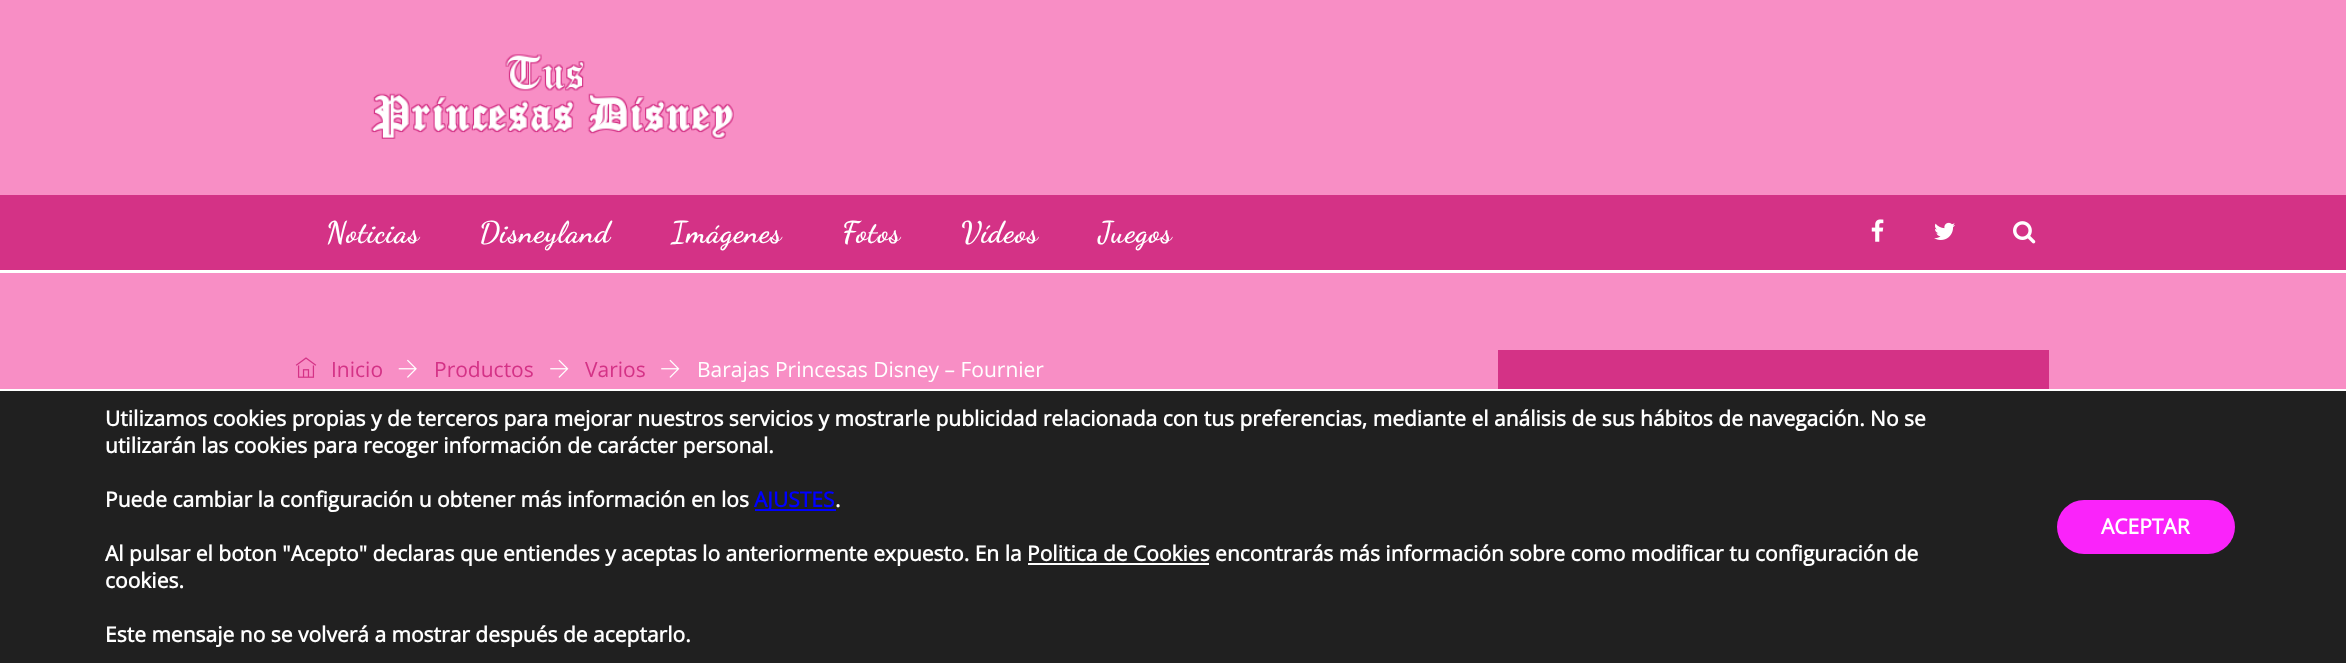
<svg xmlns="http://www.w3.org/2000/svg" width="2346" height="663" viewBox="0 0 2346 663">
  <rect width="100%" height="100%" fill="#f88ec5"/>
  <image x="370" y="54" width="364" height="85" href="img/1.png"/>
  <path d="M0 195h2346v75H0z" fill="#d43286"/>
  <path d="M0 270h2346v3H0z" fill="#fff"/>
  <image x="1871" y="219" width="13" height="23" href="img/2.png"/>
  <image x="1934" y="222" width="21" height="18" href="img/3.png"/>
  <image x="2013" y="221" width="23" height="23" href="img/4.png"/>
  <image x="295" y="357" width="22" height="21" href="img/5.png"/>
  <image x="398" y="359" width="19" height="19" href="img/6.png"/>
  <image x="550" y="359" width="19" height="19" href="img/7.png"/>
  <image x="661" y="359" width="19" height="19" href="img/7.png"/>
  <path d="M1498 350h551v39H1498z" fill="#d43286"/>
  <path d="M0 391h2346v272H0z" fill="#202020"/>
  <path d="M0 389h2346v2H0z" fill="#fff"/>
  <path d="M755 509h81v2H755z" fill="#00f"/>
  <path d="M1028 563h181v2H1028z" fill="#fff"/>
  <rect x="2057" y="500" width="178" height="54" rx="27" fill="#fa23fa"/>
  <g font-family="Dancing Script" font-size="30" font-weight="bold" letter-spacing="0.75" fill="#fff">
    <text x="326" y="242">Noticias</text>
    <text x="479" y="242">Disneyland</text>
    <text x="671" y="242">Imágenes</text>
    <text x="842" y="242">Fotos</text>
    <text x="961" y="242">Vídeos</text>
    <text x="1098" y="242">Juegos</text>
  </g>
  <g font-family="Open Sans" font-size="21" fill="#d43286">
    <text x="331" y="377">Inicio</text>
    <text x="434" y="377">Productos</text>
    <text x="585" y="377">Varios</text>
  </g>
  <text x="697" y="377" font-family="Open Sans" font-size="21" fill="#fff">Barajas Princesas Disney – Fournier</text>
  <g font-family="Open Sans" font-size="21" font-weight="bold" fill="#fff">
    <text x="105" y="426">Utilizamos cookies propias y de terceros para mejorar nuestros servicios y mostrarle publicidad relacionada con tus preferencias, mediante el análisis de sus hábitos de navegación. No se</text>
    <text x="105" y="453">utilizarán las cookies para recoger información de carácter personal.</text>
    <text x="105" y="507">Puede cambiar la configuración u obtener más información en los</text>
  </g>
  <text x="754" y="507" font-family="Open Sans" font-size="21" font-weight="bold" fill="#00f">AJUSTES</text>
  <g font-family="Open Sans" font-size="21" font-weight="bold" fill="#fff">
    <text x="835" y="507">.</text>
    <text x="105" y="561">Al pulsar el boton "Acepto" declaras que entiendes y aceptas lo anteriormente expuesto. En la Politica de Cookies encontrarás más información sobre como modificar tu configuración de</text>
    <text x="105" y="588">cookies.</text>
    <text x="105" y="642">Este mensaje no se volverá a mostrar después de aceptarlo.</text>
    <text x="2101" y="534">ACEPTAR</text>
  </g>
</svg>
